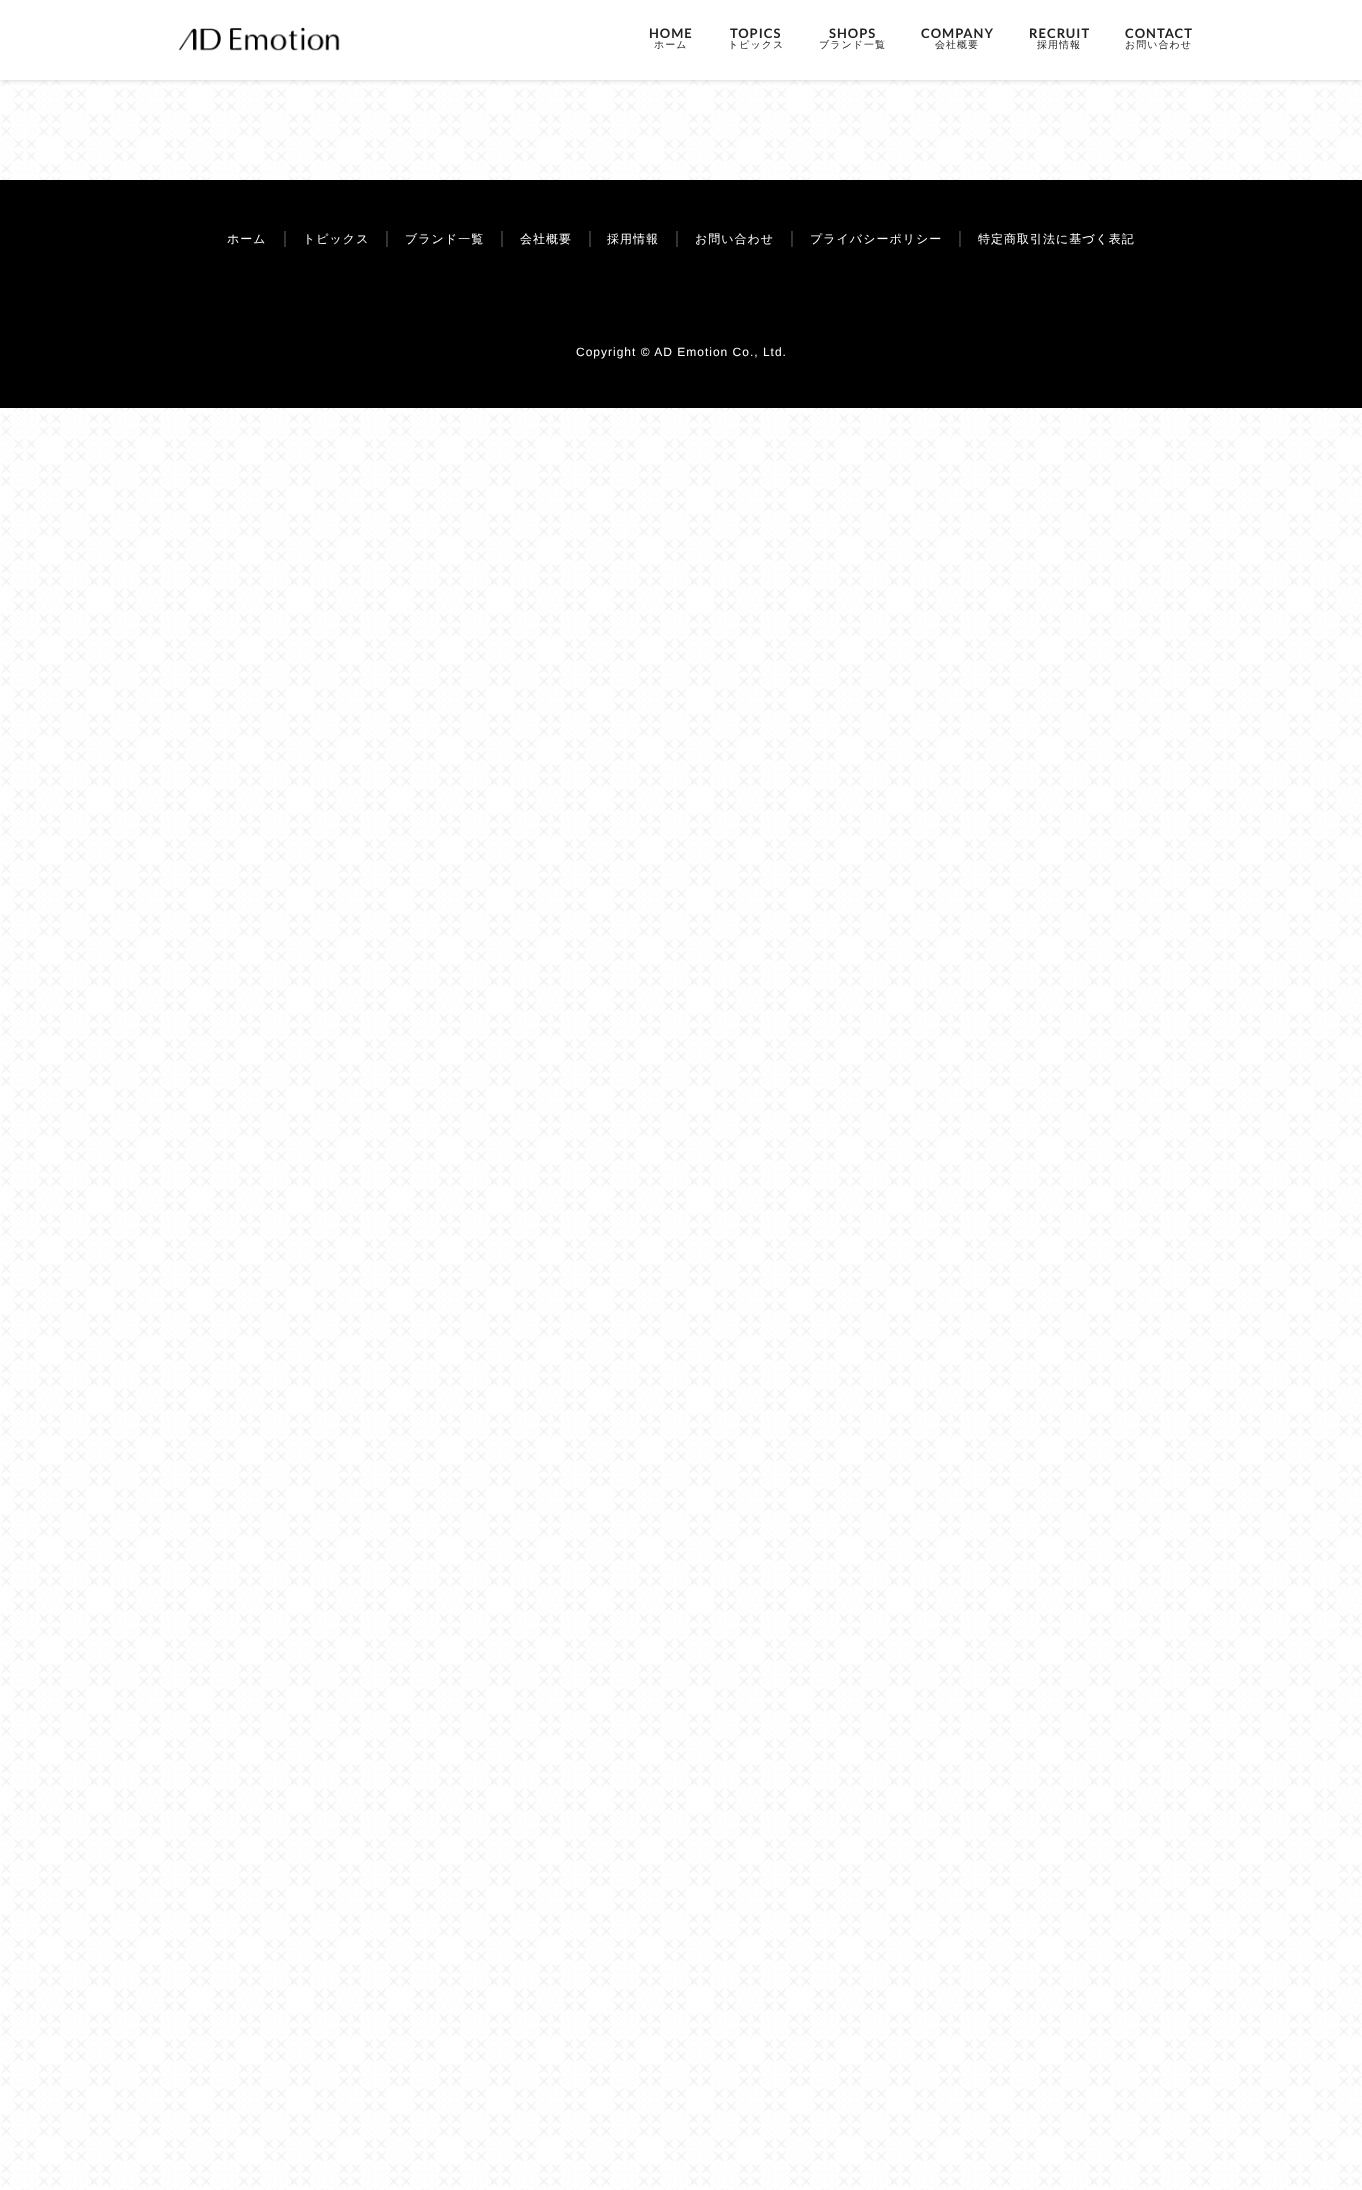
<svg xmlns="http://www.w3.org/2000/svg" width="1362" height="2190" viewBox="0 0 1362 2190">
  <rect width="100%" height="100%" fill="#fff"/>
  <image x="0" y="80" width="1362" height="2110" href="img/1.png"/>
  <path d="M0 0h1362v80H0z" fill="#ccc" filter="blur(2.5px)"/>
  <path d="M0 0h1362v80H0z" fill="#fff"/>
  <image x="178" y="27" width="162" height="24" href="img/2.png"/>
  <path d="M0 180h1362v228H0z" fill="#000"/>
  <text x="649" y="38" font-family="Lato" font-size="13" font-weight="bold" letter-spacing="1" fill="#222">HOME</text>
  <text x="654" y="48" font-family="WenQuanYi Zen Hei" font-size="10" font-weight="500" letter-spacing="1" fill="#222">ホーム</text>
  <text x="730" y="38" font-family="Lato" font-size="13" font-weight="bold" letter-spacing="1" fill="#222">TOPICS</text>
  <text x="728" y="48" font-family="WenQuanYi Zen Hei" font-size="10" font-weight="500" letter-spacing="1" fill="#222">トピックス</text>
  <text x="829" y="38" font-family="Lato" font-size="13" font-weight="bold" letter-spacing="1" fill="#222">SHOPS</text>
  <text x="819" y="48" font-family="WenQuanYi Zen Hei" font-size="10" font-weight="500" letter-spacing="1" fill="#222">ブランド一覧</text>
  <text x="921" y="38" font-family="Lato" font-size="13" font-weight="bold" letter-spacing="1" fill="#222">COMPANY</text>
  <text x="935" y="48" font-family="WenQuanYi Zen Hei" font-size="10" font-weight="500" letter-spacing="1" fill="#222">会社概要</text>
  <text x="1029" y="38" font-family="Lato" font-size="13" font-weight="bold" letter-spacing="1" fill="#222">RECRUIT</text>
  <text x="1037" y="48" font-family="WenQuanYi Zen Hei" font-size="10" font-weight="500" letter-spacing="1" fill="#222">採用情報</text>
  <text x="1125" y="38" font-family="Lato" font-size="13" font-weight="bold" letter-spacing="1" fill="#222">CONTACT</text>
  <text x="1125" y="48" font-family="WenQuanYi Zen Hei" font-size="10" font-weight="500" letter-spacing="1" fill="#222">お問い合わせ</text>
  <text x="227" y="243" font-family="WenQuanYi Zen Hei" font-size="12" font-weight="500" letter-spacing="1" fill="#fff">ホーム</text>
  <text x="277" y="243" font-family="WenQuanYi Zen Hei" font-size="16" font-weight="500" fill="#666">｜</text>
  <text x="303" y="243" font-family="WenQuanYi Zen Hei" font-size="12" font-weight="500" letter-spacing="1" fill="#fff">トピックス</text>
  <text x="379" y="243" font-family="WenQuanYi Zen Hei" font-size="16" font-weight="500" fill="#666">｜</text>
  <text x="405" y="243" font-family="WenQuanYi Zen Hei" font-size="12" font-weight="500" letter-spacing="1" fill="#fff">ブランド一覧</text>
  <text x="494" y="243" font-family="WenQuanYi Zen Hei" font-size="16" font-weight="500" fill="#666">｜</text>
  <text x="520" y="243" font-family="WenQuanYi Zen Hei" font-size="12" font-weight="500" letter-spacing="1" fill="#fff">会社概要</text>
  <text x="582" y="243" font-family="WenQuanYi Zen Hei" font-size="16" font-weight="500" fill="#666">｜</text>
  <text x="607" y="243" font-family="WenQuanYi Zen Hei" font-size="12" font-weight="500" letter-spacing="1" fill="#fff">採用情報</text>
  <text x="669" y="243" font-family="WenQuanYi Zen Hei" font-size="16" font-weight="500" fill="#666">｜</text>
  <text x="695" y="243" font-family="WenQuanYi Zen Hei" font-size="12" font-weight="500" letter-spacing="1" fill="#fff">お問い合わせ</text>
  <text x="784" y="243" font-family="WenQuanYi Zen Hei" font-size="16" font-weight="500" fill="#666">｜</text>
  <text x="810" y="243" font-family="WenQuanYi Zen Hei" font-size="12" font-weight="500" letter-spacing="1" fill="#fff">プライバシーポリシー</text>
  <text x="952" y="243" font-family="WenQuanYi Zen Hei" font-size="16" font-weight="500" fill="#666">｜</text>
  <text x="978" y="243" font-family="WenQuanYi Zen Hei" font-size="12" font-weight="500" letter-spacing="1" fill="#fff">特定商取引法に基づく表記</text>
  <text x="576" y="356" font-family="Liberation Sans" font-size="12" letter-spacing="1" fill="#fff">Copyright © AD Emotion Co., Ltd.</text>
</svg>
